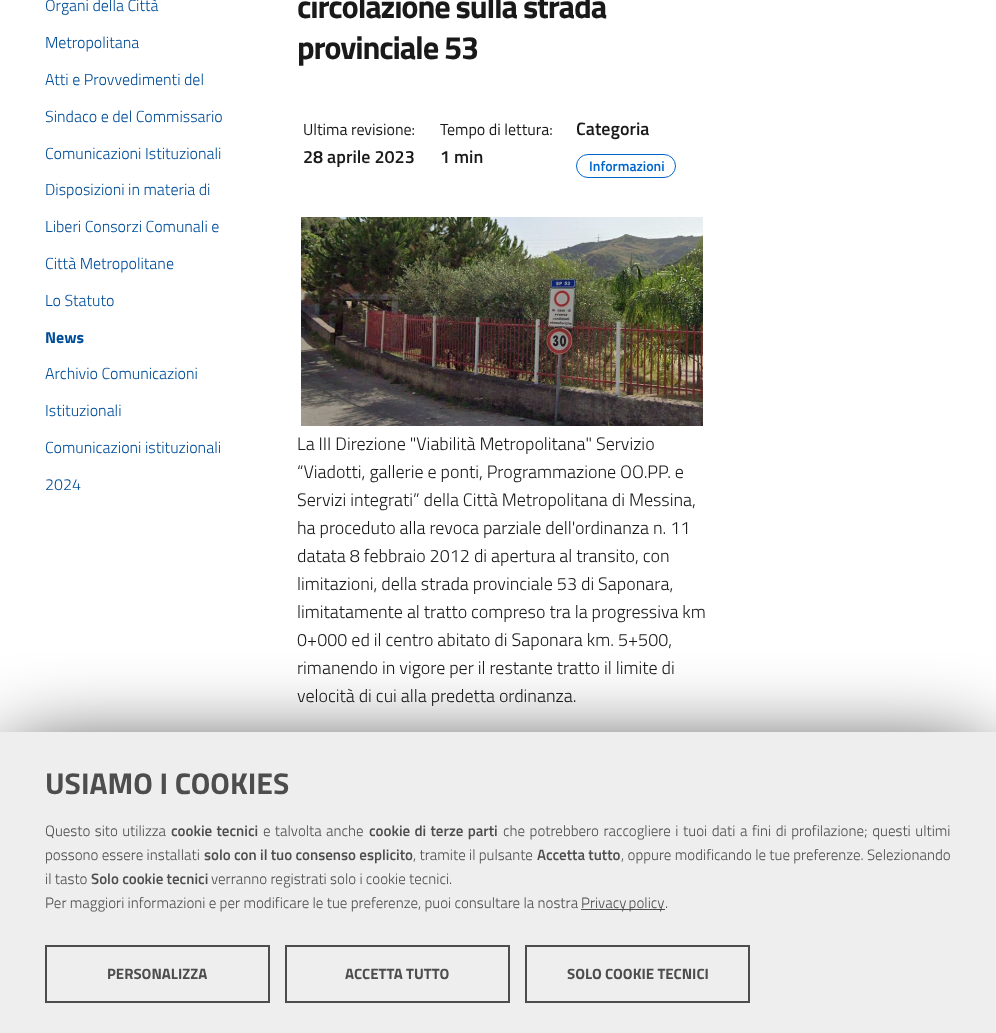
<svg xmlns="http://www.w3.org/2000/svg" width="996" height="1033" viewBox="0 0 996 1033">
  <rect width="100%" height="100%" fill="#fff"/>
  <rect x="576.5" y="154.5" width="99" height="23" rx="11.5" fill="none" stroke="#06c"/>
  <image x="301" y="217" width="402" height="209" href="img/1.png"/>
  <path d="M9 759h978v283H9z" fill="#000" filter="blur(45px)"/>
  <path d="M0 732h996v301H0z" fill="#eee"/>
  <path d="M581 909h84v1H581z" fill="#4d4d4d"/>
  <path d="M46 946h223v56H46z" fill="none" stroke="#4d4d4d" stroke-width="2"/>
  <path d="M286 946h223v56H286z" fill="none" stroke="#4d4d4d" stroke-width="2"/>
  <path d="M526 946h223v56H526z" fill="none" stroke="#4d4d4d" stroke-width="2"/>
  <path d="M47.5 984.5L50 987L55.5 980.5" fill="none" stroke="#eee" stroke-width="2.1"/>
  <g font-family="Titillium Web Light" font-size="16" font-weight="300" fill="#004d99">
    <text x="45" y="11">Organi della Città</text>
    <text x="45" y="48">Metropolitana</text>
    <text x="45" y="85">Atti e Provvedimenti del</text>
    <text x="45" y="122">Sindaco e del Commissario</text>
    <text x="45" y="159">Comunicazioni Istituzionali</text>
    <text x="45" y="195">Disposizioni in materia di</text>
    <text x="45" y="232">Liberi Consorzi Comunali e</text>
    <text x="45" y="269">Città Metropolitane</text>
    <text x="45" y="306">Lo Statuto</text>
  </g>
  <text x="45" y="343" font-family="Titillium Web" font-size="16" font-weight="bold" fill="#004d99">News</text>
  <g font-family="Titillium Web Light" font-size="16" font-weight="300" fill="#004d99">
    <text x="45" y="379">Archivio Comunicazioni</text>
    <text x="45" y="416">Istituzionali</text>
    <text x="45" y="453">Comunicazioni istituzionali</text>
    <text x="45" y="490">2024</text>
  </g>
  <g font-family="Titillium Web" font-size="32.5" font-weight="bold" letter-spacing="-1.2" fill="#19191a">
    <text x="297" y="18">circolazione sulla strada</text>
    <text x="297" y="59">provinciale 53</text>
  </g>
  <text x="303" y="135" font-family="Titillium Web" font-size="16" fill="#19191a">Ultima revisione:</text>
  <text x="303" y="163" font-family="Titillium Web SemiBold" font-size="18" font-weight="600" fill="#19191a">28 aprile 2023</text>
  <text x="440" y="135" font-family="Titillium Web" font-size="16" fill="#19191a">Tempo di lettura:</text>
  <g font-family="Titillium Web SemiBold" font-size="18" font-weight="600" fill="#19191a">
    <text x="440" y="163">1 min</text>
    <text x="576" y="135">Categoria</text>
  </g>
  <text x="589" y="171" font-family="Titillium Web SemiBold" font-size="14" font-weight="600" fill="#06c">Informazioni</text>
  <g font-family="Titillium Web Light" font-size="18" font-weight="300" fill="#19191a">
    <text x="297" y="450">La III Direzione "Viabilità Metropolitana" Servizio</text>
    <text x="297" y="478">“Viadotti, gallerie e ponti, Programmazione OO.PP. e</text>
    <text x="297" y="506">Servizi integrati” della Città Metropolitana di Messina,</text>
    <text x="297" y="534">ha proceduto alla revoca parziale dell'ordinanza n. 11</text>
    <text x="297" y="562">datata 8 febbraio 2012 di apertura al transito, con</text>
    <text x="297" y="590">limitazioni, della strada provinciale 53 di Saponara,</text>
    <text x="297" y="618">limitatamente al tratto compreso tra la progressiva km</text>
    <text x="297" y="646">0+000 ed il centro abitato di Saponara km. 5+500,</text>
    <text x="297" y="674">rimanendo in vigore per il restante tratto il limite di</text>
    <text x="297" y="702">velocità di cui alla predetta ordinanza.</text>
  </g>
  <text x="45" y="794" font-family="Titillium Web" font-size="30" font-weight="bold" fill="#4d4d4d">USIAMO I COOKIES</text>
  <text x="45" y="836" word-spacing="1" font-family="Titillium Web Light" font-size="15" font-weight="300" fill="#4d4d4d">Questo sito utilizza</text>
  <text x="171" y="836" word-spacing="1" font-family="Titillium Web SemiBold" font-size="15" font-weight="600" fill="#4d4d4d">cookie tecnici</text>
  <text x="263" y="836" word-spacing="1" font-family="Titillium Web Light" font-size="15" font-weight="300" fill="#4d4d4d">e talvolta anche</text>
  <text x="369" y="836" word-spacing="1" font-family="Titillium Web SemiBold" font-size="15" font-weight="600" fill="#4d4d4d">cookie di terze parti</text>
  <g font-family="Titillium Web Light" font-size="15" font-weight="300" fill="#4d4d4d">
    <text x="503" y="836" word-spacing="1.25">che potrebbero raccogliere i tuoi dati a fini di profilazione; questi ultimi</text>
    <text x="45" y="860">possono essere installati</text>
  </g>
  <text x="204" y="860" font-family="Titillium Web SemiBold" font-size="15" font-weight="600" fill="#4d4d4d">solo con il tuo consenso esplicito</text>
  <text x="413" y="860" font-family="Titillium Web Light" font-size="15" font-weight="300" fill="#4d4d4d">, tramite il pulsante</text>
  <text x="537" y="860" font-family="Titillium Web SemiBold" font-size="15" font-weight="600" fill="#4d4d4d">Accetta tutto</text>
  <g font-family="Titillium Web Light" font-size="15" font-weight="300" fill="#4d4d4d">
    <text x="621" y="860">, oppure modificando le tue preferenze. Selezionando</text>
    <text x="45" y="884">il tasto</text>
  </g>
  <text x="91" y="884" font-family="Titillium Web SemiBold" font-size="15" font-weight="600" fill="#4d4d4d">Solo cookie tecnici</text>
  <g font-family="Titillium Web Light" font-size="15" font-weight="300" fill="#4d4d4d">
    <text x="211" y="884">verranno registrati solo i cookie tecnici.</text>
    <text x="45" y="908">Per maggiori informazioni e per modificare le tue preferenze, puoi consultare la nostra</text>
    <text x="581" y="908" word-spacing="-1">Privacy policy</text>
    <text x="665" y="908">.</text>
  </g>
  <g font-family="Titillium Web" font-size="15" font-weight="bold" fill="#4d4d4d">
    <text x="107" y="979">PERSONALIZZA</text>
    <text x="345" y="979">ACCETTA TUTTO</text>
    <text x="567" y="979">SOLO COOKIE TECNICI</text>
  </g>
</svg>
